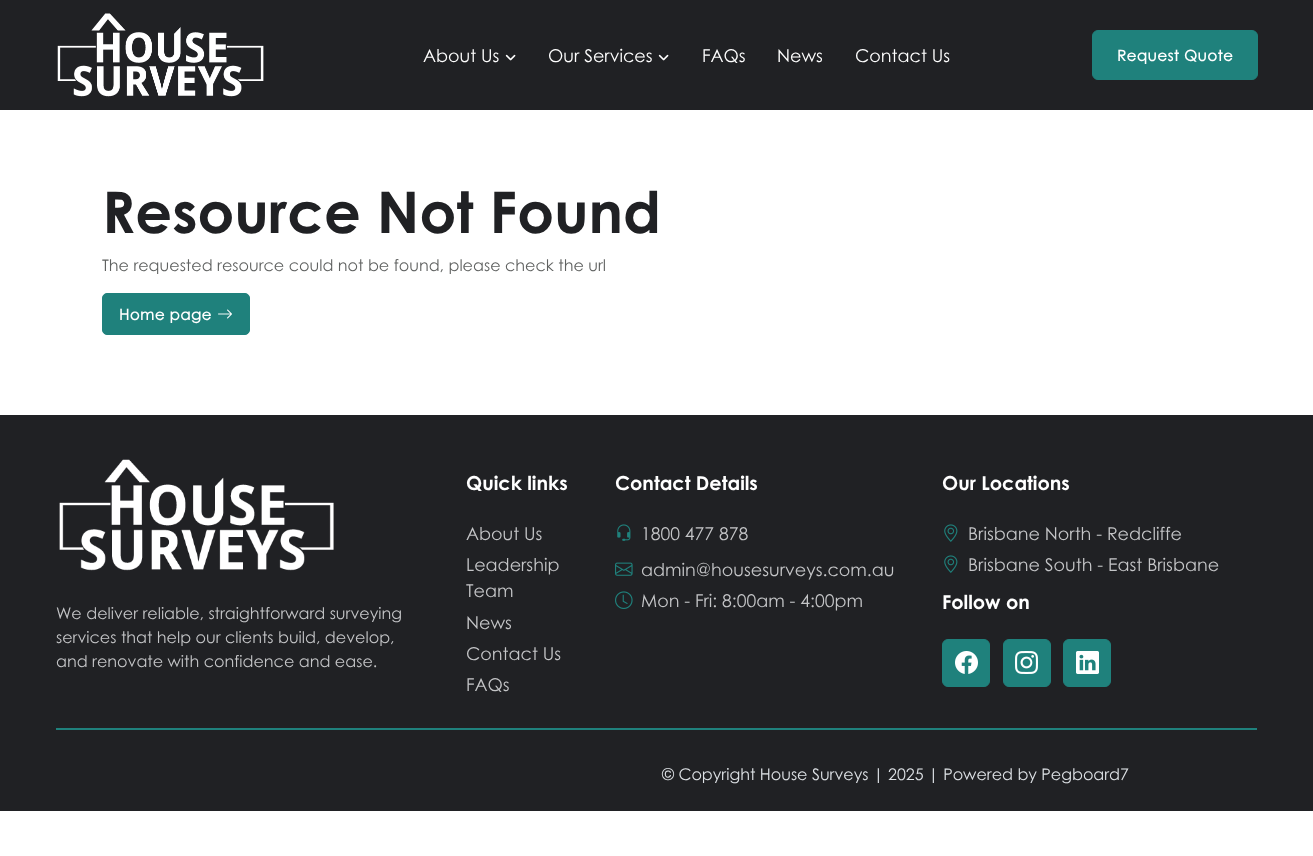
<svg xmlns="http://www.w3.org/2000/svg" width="1313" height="856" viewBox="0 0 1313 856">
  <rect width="100%" height="100%" fill="#fff"/>
  <path d="M0 0h1313v110H0z" fill="#202124"/>
  <image x="57" y="13" width="207" height="84" href="img/1.png"/>
  <image x="505" y="54" width="11" height="7" href="img/2.png"/>
  <image x="658" y="54" width="11" height="7" href="img/2.png"/>
  <rect x="1092.5" y="30.5" width="165" height="49" rx="5.5" fill="#1f817c" stroke="#1f817c"/>
  <rect x="102.5" y="293.5" width="147" height="41" rx="4.5" fill="#1f817c" stroke="#1f817c"/>
  <image x="218" y="309" width="14" height="10" href="img/3.png"/>
  <path d="M0 415h1313v396H0z" fill="#202124"/>
  <image x="59" y="459" width="275" height="112" href="img/4.png"/>
  <image x="617" y="524" width="14" height="17" href="img/5.png"/>
  <image x="615" y="562" width="18" height="14" href="img/6.png"/>
  <image x="615" y="591" width="18" height="18" href="img/7.png"/>
  <image x="944" y="524" width="14" height="18" href="img/8.png"/>
  <image x="944" y="555" width="14" height="18" href="img/8.png"/>
  <rect x="942.5" y="639.5" width="47" height="47" rx="5.5" fill="#1f817c" stroke="#1f817c"/>
  <image x="955" y="651" width="23" height="23" href="img/9.png"/>
  <rect x="1003.5" y="639.5" width="47" height="47" rx="5.5" fill="#1f817c" stroke="#1f817c"/>
  <image x="1015" y="651" width="23" height="23" href="img/10.png"/>
  <rect x="1063.5" y="639.5" width="47" height="47" rx="5.5" fill="#1f817c" stroke="#1f817c"/>
  <image x="1076" y="651" width="23" height="23" href="img/11.png"/>
  <path d="M56 728h1201v2H56z" fill="#1f817c"/>
  <g font-family="Century Gothic" font-size="17.6" fill="#fff">
    <text x="423" y="62">About Us</text>
    <text x="548" y="62">Our Services</text>
    <text x="702" y="62">FAQs</text>
    <text x="777" y="62">News</text>
    <text x="855" y="62">Contact Us</text>
  </g>
  <text x="1117" y="61" font-family="'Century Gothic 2'" font-size="15" font-weight="bold" letter-spacing="0.5" fill="#fff">Request Quote</text>
  <text x="102" y="233" font-family="Century Gothic" font-size="57.5" font-weight="bold" fill="#202124">Resource Not Found</text>
  <text x="102" y="271" font-family="Century Gothic" font-size="16" fill="#606261">The requested resource could not be found, please check the url</text>
  <text x="119" y="320" font-family="'Century Gothic 2'" font-size="15" font-weight="bold" letter-spacing="0.5" fill="#fff">Home page</text>
  <g font-family="Century Gothic" font-size="16" fill="#c4c5c7">
    <text x="56" y="619">We deliver reliable, straightforward surveying</text>
    <text x="56" y="643">services that help our clients build, develop,</text>
    <text x="56" y="667">and renovate with confidence and ease.</text>
  </g>
  <text x="466" y="490" font-family="Century Gothic" font-size="19.25" font-weight="bold" fill="#fff">Quick links</text>
  <g font-family="Century Gothic" font-size="17.6" fill="#c4c5c7">
    <text x="466" y="540">About Us</text>
    <text x="466" y="571">Leadership</text>
    <text x="466" y="597">Team</text>
    <text x="466" y="629">News</text>
    <text x="466" y="660">Contact Us</text>
    <text x="466" y="691">FAQs</text>
  </g>
  <text x="615" y="490" font-family="Century Gothic" font-size="19.25" font-weight="bold" fill="#fff">Contact Details</text>
  <g font-family="Century Gothic" font-size="17.6" fill="#c4c5c7">
    <text x="641" y="540">1800 477 878</text>
    <text x="641" y="576">admin@housesurveys.com.au</text>
    <text x="641" y="607">Mon - Fri: 8:00am - 4:00pm</text>
  </g>
  <text x="942" y="490" font-family="Century Gothic" font-size="19.25" font-weight="bold" fill="#fff">Our Locations</text>
  <g font-family="Century Gothic" font-size="17.6" fill="#c4c5c7">
    <text x="968" y="540">Brisbane North - Redcliffe</text>
    <text x="968" y="571">Brisbane South - East Brisbane</text>
  </g>
  <text x="942" y="609" font-family="Century Gothic" font-size="19.25" font-weight="bold" fill="#fff">Follow on</text>
  <text x="662" y="780" font-family="Century Gothic" font-size="16" fill="#dee2e6">© Copyright House Surveys | 2025 | Powered by Pegboard7</text>
</svg>
